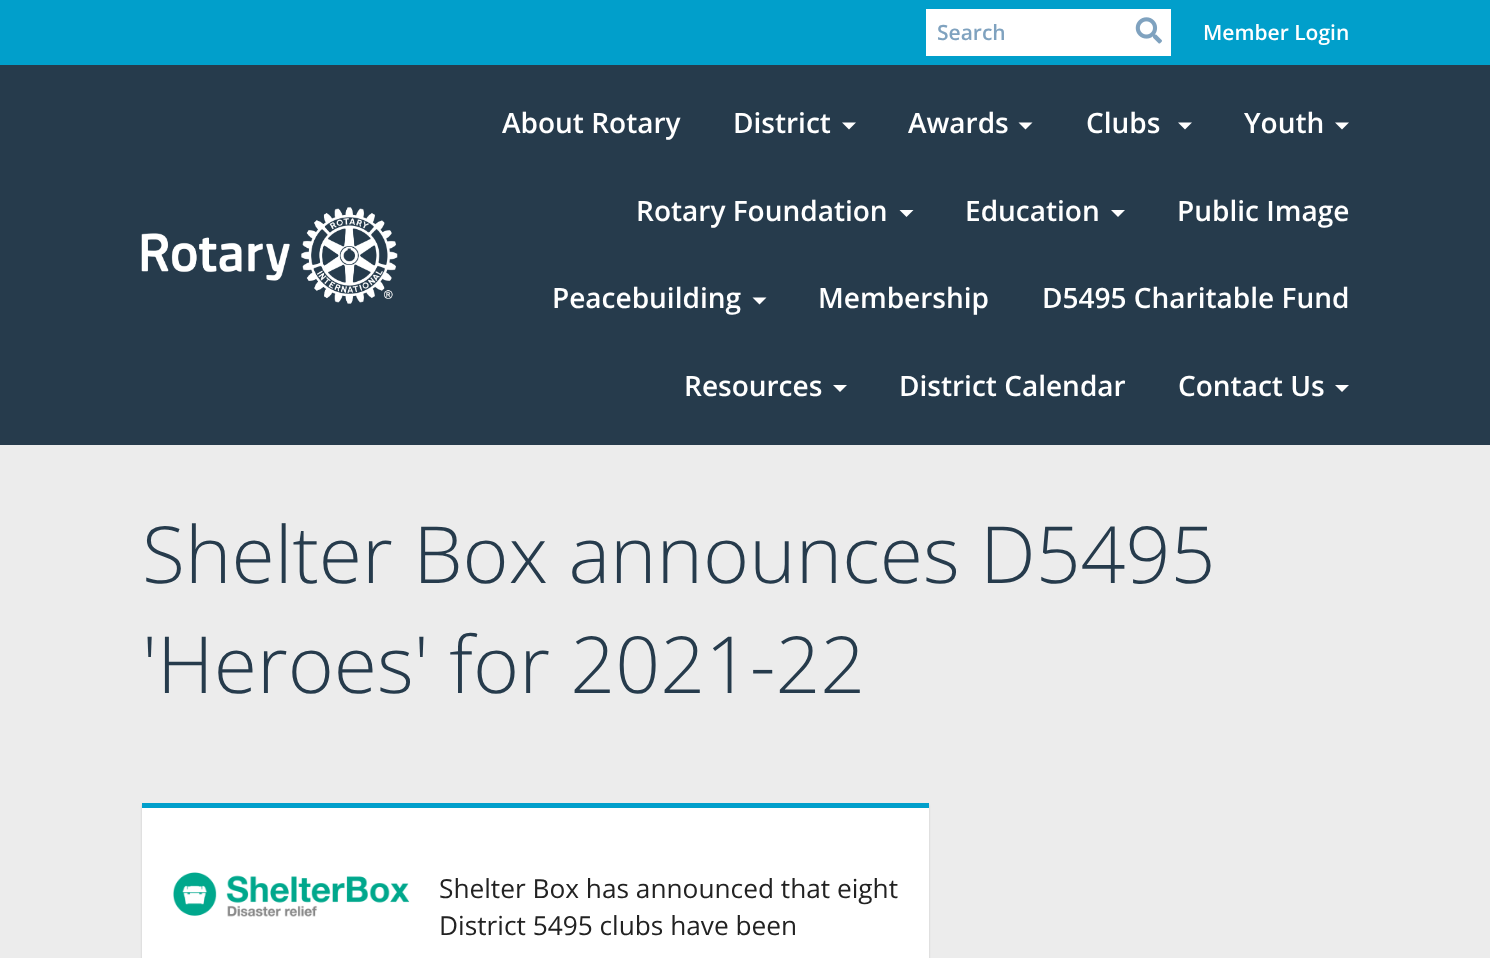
<svg xmlns="http://www.w3.org/2000/svg" width="1490" height="958" viewBox="0 0 1490 958">
  <rect width="100%" height="100%" fill="#ececec"/>
  <path d="M0 0h1490v65H0z" fill="#019fcb"/>
  <path d="M926 9h245v47H926z" fill="#fff"/>
  <image x="1135" y="17" width="27" height="27" href="img/1.png"/>
  <path d="M0 65h1490v380H0z" fill="#263b4c"/>
  <image x="141" y="207" width="257" height="97" href="img/2.png"/>
  <path d="M842 122.5H856L849 129.5Z" fill="#fff"/>
  <path d="M1018.5 122.5H1032.5L1025.5 129.5Z" fill="#fff"/>
  <path d="M1178 122.5H1192L1185 129.5Z" fill="#fff"/>
  <path d="M1335 122.5H1349L1342 129.5Z" fill="#fff"/>
  <path d="M899.5 210H913.5L906.5 217Z" fill="#fff"/>
  <path d="M1111 210H1125L1118 217Z" fill="#fff"/>
  <path d="M752.5 297.5H766.5L759.5 304.5Z" fill="#fff"/>
  <path d="M833 385H847L840 392Z" fill="#fff"/>
  <path d="M1335 385H1349L1342 392Z" fill="#fff"/>
  <path d="M142 805h787v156H142z" fill="#00000026" filter="blur(1px)"/>
  <path d="M142 808h787v150H142z" fill="#fff"/>
  <path d="M142 803h787v5H142z" fill="#019fcb"/>
  <image x="173" y="872" width="237" height="45" href="img/3.png"/>
  <text x="937" y="40" font-family="Open Sans" font-size="21" font-weight="600" fill="#7fa2bf">Search</text>
  <text x="1203" y="40" font-family="Open Sans" font-size="21" font-weight="600" fill="#fff">Member Login</text>
  <g font-family="Open Sans" font-size="28" font-weight="600" fill="#fff">
    <text x="502" y="133">About Rotary</text>
    <text x="733" y="133">District</text>
    <text x="908" y="133">Awards</text>
    <text x="1086" y="133">Clubs</text>
    <text x="1244" y="133">Youth</text>
    <text x="636" y="221">Rotary Foundation</text>
    <text x="965" y="221">Education</text>
    <text x="1177" y="221">Public Image</text>
    <text x="552" y="308">Peacebuilding</text>
    <text x="818" y="308">Membership</text>
    <text x="1042" y="308">D5495 Charitable Fund</text>
    <text x="684" y="396">Resources</text>
    <text x="899" y="396">District Calendar</text>
    <text x="1178" y="396">Contact Us</text>
  </g>
  <g font-family="Open Sans" font-size="78.75" font-weight="300" fill="#263b4c">
    <text x="142" y="583">Shelter Box announces D5495</text>
    <text x="142" y="693">'Heroes' for 2021-22</text>
  </g>
  <g font-family="Open Sans" font-size="26.25" fill="#222">
    <text x="439" y="898">Shelter Box has announced that eight</text>
    <text x="439" y="935">District 5495 clubs have been</text>
  </g>
</svg>
